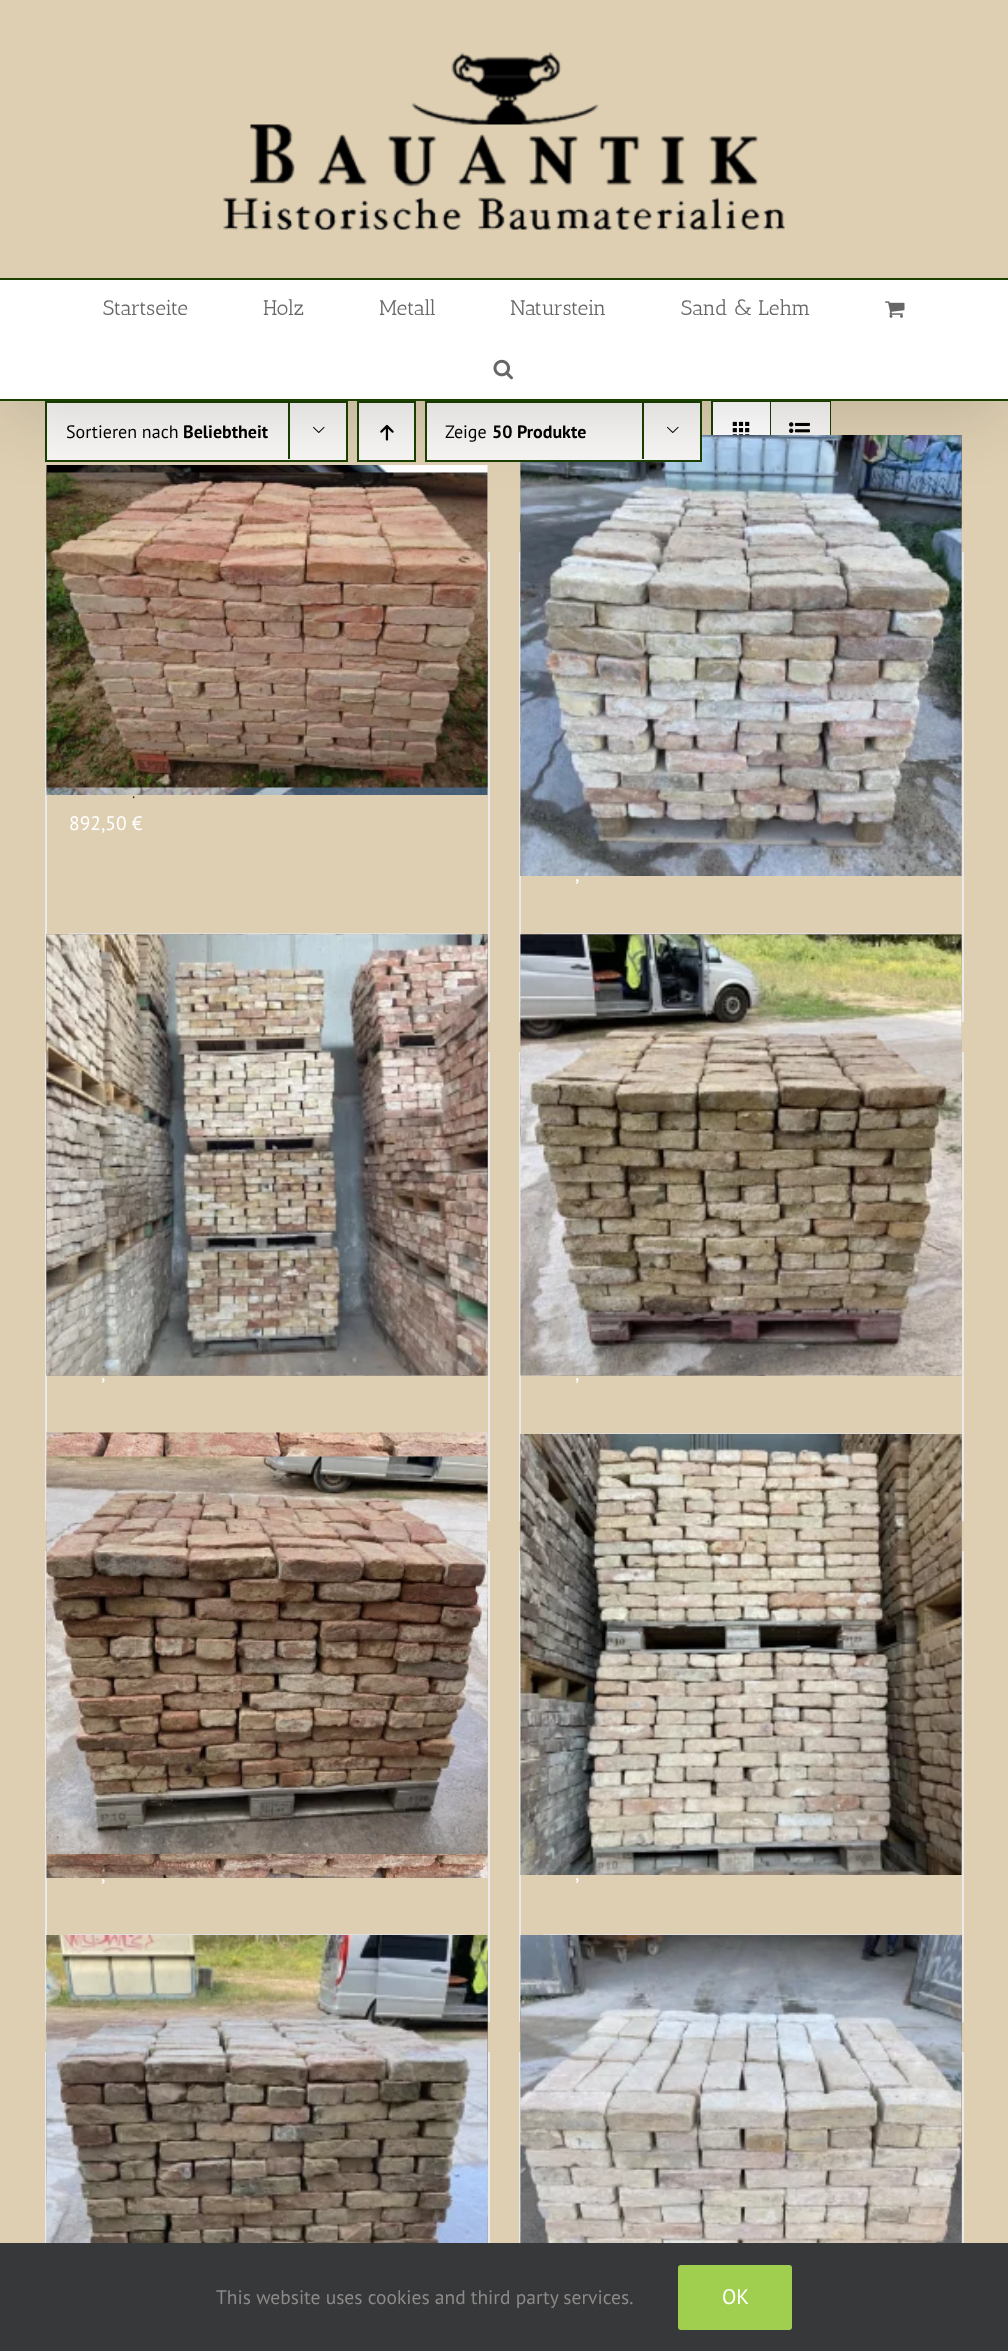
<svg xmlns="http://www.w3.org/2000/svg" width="1008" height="2351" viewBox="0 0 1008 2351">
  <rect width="100%" height="100%" fill="#decfb2"/>
  <path d="M46 402h301v59H46z" fill="#f7f6f4" stroke="#1b4000" stroke-width="2"/>
  <path d="M288 401h2v58H288z" fill="#1b4000"/>
  <image x="313" y="426" width="12" height="7" href="img/4.png"/>
  <path d="M358 402h57v59H358z" fill="#f7f6f4" stroke="#1b4000" stroke-width="2"/>
  <image x="380" y="424" width="14" height="17" href="img/5.png"/>
  <path d="M712 402h118v59H712z" fill="none" stroke="#1b4000" stroke-width="2"/>
  <path d="M519 552h2v470H519z" fill="#ebeaea"/>
  <image x="520" y="435" width="442" height="441" href="img/10.png"/>
  <image x="520" y="435" width="442" height="441" href="img/11.png"/>
  <path d="M426 402h275v59H426z" fill="#f7f6f4" stroke="#1b4000" stroke-width="2"/>
  <path d="M642 401h2v58H642z" fill="#1b4000"/>
  <image x="667" y="426" width="12" height="7" href="img/4.png"/>
  <path d="M713 402h57v33H713z" fill="#fff"/>
  <path d="M770 402h1v33H770z" fill="#1b4000"/>
  <image x="732" y="421" width="18" height="14" href="img/6.png"/>
  <path d="M771 402h59v33H771z" fill="#f7f6f4"/>
  <image x="789" y="422" width="21" height="13" href="img/7.png"/>
  <path d="M45 552h2v470H45z" fill="#ebeaea"/>
  <image x="46" y="465" width="442" height="330" href="img/8.png"/>
  <image x="46" y="472" width="442" height="316" href="img/9.png"/>
  <path d="M3 18h1002v395H3z" fill="#00000024" filter="blur(37.5px)"/>
  <path d="M0 0h1008v278H0z" fill="#decfb2"/>
  <path d="M0 278h1008v2H0z" fill="#1b4000"/>
  <image x="223" y="52" width="562" height="178" href="img/1.png"/>
  <path d="M0 280h1008v119H0z" fill="#fff"/>
  <path d="M0 399h1008v2H0z" fill="#1b4000"/>
  <image x="885" y="301" width="20" height="17" href="img/2.png"/>
  <image x="493" y="359" width="20" height="21" href="img/3.png"/>
  <path d="M488 552h2v470H488z" fill="#ebeaea"/>
  <path d="M487 1019h1v3H487z" fill="#ebeaea"/>
  <path d="M69 933h396v2H69z" fill="#e0dede"/>
  <path d="M962 552h2v470H962z" fill="#ebeaea"/>
  <path d="M961 1019h1v3H961z" fill="#ebeaea"/>
  <path d="M543 933h396v2H543z" fill="#e0dede"/>
  <path d="M488 1052h2v469H488z" fill="#ebeaea"/>
  <path d="M487 1518h1v3H487z" fill="#ebeaea"/>
  <path d="M45 1052h2v469H45z" fill="#ebeaea"/>
  <image x="46" y="934" width="442" height="442" href="img/12.png"/>
  <image x="46" y="934" width="442" height="442" href="img/13.png"/>
  <path d="M962 1052h2v469H962z" fill="#ebeaea"/>
  <path d="M961 1518h1v3H961z" fill="#ebeaea"/>
  <path d="M519 1052h2v469H519z" fill="#ebeaea"/>
  <image x="520" y="934" width="442" height="442" href="img/14.png"/>
  <image x="520" y="934" width="442" height="442" href="img/15.png"/>
  <path d="M543 1433h396v1H543z" fill="#e0dede"/>
  <path d="M488 1551h2v471H488z" fill="#ebeaea"/>
  <path d="M487 2019h1v3H487z" fill="#ebeaea"/>
  <path d="M45 1551h2v471H45z" fill="#ebeaea"/>
  <image x="46" y="1432" width="442" height="446" href="img/16.png"/>
  <image x="46" y="1456" width="442" height="398" href="img/17.png"/>
  <path d="M69 1934h396v1H69z" fill="#e0dede"/>
  <path d="M962 1551h2v471H962z" fill="#ebeaea"/>
  <path d="M961 2019h1v3H961z" fill="#ebeaea"/>
  <path d="M519 1551h2v471H519z" fill="#ebeaea"/>
  <image x="520" y="1434" width="442" height="441" href="img/18.png"/>
  <image x="520" y="1434" width="442" height="441" href="img/19.png"/>
  <path d="M543 1934h396v1H543z" fill="#e0dede"/>
  <path d="M488 2052h2v191H488z" fill="#ebeaea"/>
  <path d="M45 2052h2v191H45z" fill="#ebeaea"/>
  <image x="46" y="1935" width="442" height="308" href="img/20.png"/>
  <image x="46" y="1935" width="442" height="308" href="img/21.png"/>
  <path d="M962 2052h2v191H962z" fill="#ebeaea"/>
  <path d="M519 2052h2v191H519z" fill="#ebeaea"/>
  <image x="520" y="1935" width="442" height="308" href="img/22.png"/>
  <image x="520" y="1935" width="442" height="308" href="img/23.png"/>
  <path d="M0 2243h1008v108H0z" fill="#363839"/>
  <rect x="678" y="2265" width="114" height="65" rx="3" fill="#a0ce4e"/>
  <g font-family="Antic Slab" font-size="21" fill="#666">
    <text x="103" y="315">Startseite</text>
    <text x="263" y="315">Holz</text>
    <text x="379" y="315">Metall</text>
    <text x="510" y="315">Naturstein</text>
    <text x="681" y="315">Sand &amp; Lehm</text>
  </g>
  <text x="66" y="438" font-family="PT Sans" font-size="18" fill="#000">Sortieren nach</text>
  <text x="183" y="438" font-family="PT Sans" font-size="18" font-weight="bold" fill="#000">Beliebtheit</text>
  <text x="445" y="438" font-family="PT Sans" font-size="18" fill="#000">Zeige</text>
  <text x="492" y="438" font-family="PT Sans" font-size="18" font-weight="bold" fill="#000">50 Produkte</text>
  <text x="132" y="798" font-family="Antic Slab" font-size="24" fill="#333">.</text>
  <g font-family="PT Sans" font-size="19.5" fill="#fff">
    <text x="69" y="830">892,50 €</text>
    <text x="575" y="881">,</text>
    <text x="101" y="1380">,</text>
    <text x="575" y="1380">,</text>
    <text x="101" y="1881">,</text>
    <text x="575" y="1880">,</text>
  </g>
  <text x="216" y="2304" font-family="PT Sans" font-size="19.5" fill="#8c8989">This website uses cookies and third party services.</text>
  <text x="722" y="2304" font-family="PT Sans" font-size="21" fill="#fff">OK</text>
</svg>
